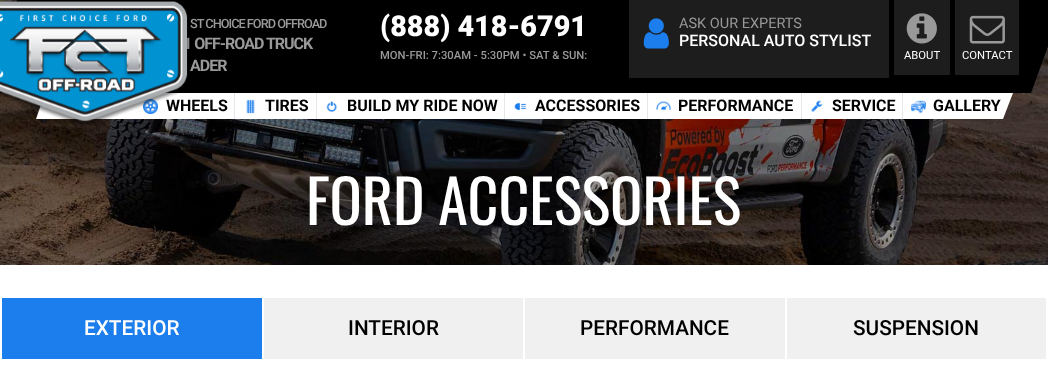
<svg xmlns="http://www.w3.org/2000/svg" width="1048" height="390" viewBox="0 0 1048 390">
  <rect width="100%" height="100%" fill="#fff"/>
  <image x="0" y="0" width="1048" height="265" href="img/12.png"/>
  <path d="M17 0H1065L1031 93H-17Z" fill="#000"/>
  <path d="M629 0h260v78H629z" fill="#1d1d1d"/>
  <image x="643" y="18" width="26" height="31" href="img/1.png"/>
  <path d="M894 0h56v75H894z" fill="#1d1d1d"/>
  <image x="906" y="13" width="31" height="31" href="img/2.png"/>
  <path d="M955 0h64v75H955z" fill="#1d1d1d"/>
  <image x="969" y="15" width="36" height="29" href="img/3.png"/>
  <path d="M45 93H1013L1003 119H36Z" fill="#fff"/>
  <path d="M234 93h1v26H234z" fill="#e6e6e6"/>
  <image x="143" y="99" width="15" height="15" href="img/5.png"/>
  <path d="M316 93h1v26H316z" fill="#e6e6e6"/>
  <image x="246" y="99" width="9" height="15" href="img/6.png"/>
  <path d="M504 93h1v26H504z" fill="#e6e6e6"/>
  <image x="326" y="101" width="11" height="11" href="img/7.png"/>
  <path d="M647 93h1v26H647z" fill="#e6e6e6"/>
  <image x="514" y="103" width="13" height="7" href="img/8.png"/>
  <path d="M801 93h1v26H801z" fill="#e6e6e6"/>
  <image x="656" y="101" width="15" height="9" href="img/9.png"/>
  <path d="M902 93h1v26H902z" fill="#e6e6e6"/>
  <image x="811" y="100" width="12" height="12" href="img/10.png"/>
  <image x="911" y="100" width="15" height="14" href="img/11.png"/>
  <path d="M2 298h260v61H2z" fill="#1c7dec"/>
  <path d="M264 298h259v61H264z" fill="#f0f0f0"/>
  <path d="M525 298h260v61H525z" fill="#f0f0f0"/>
  <path d="M787 298h259v61H787z" fill="#f0f0f0"/>
  <text x="190" y="28" font-family="Roboto" font-size="12.75" font-weight="500" letter-spacing="-1" fill="#999">ST CHOICE FORD OFFROAD</text>
  <g font-family="Roboto" font-size="16" font-weight="bold" letter-spacing="-1" fill="#999">
    <text x="183" y="49">1 OFF-ROAD TRUCK</text>
    <text x="190" y="71">ADER</text>
  </g>
  <text x="380" y="36" font-family="Roboto" font-size="28.75" font-weight="900" fill="#fff">(888) 418-6791</text>
  <text x="380" y="59" font-family="Roboto" font-size="11.25" font-weight="500" fill="#999">MON-FRI: 7:30AM - 5:30PM • SAT &amp; SUN:</text>
  <text x="679" y="28" font-family="Roboto" font-size="14.5" fill="#999">ASK OUR EXPERTS</text>
  <text x="679" y="46" font-family="Roboto" font-size="16" font-weight="500" fill="#fff">PERSONAL AUTO STYLIST</text>
  <g font-family="Roboto" font-size="11.25" fill="#fff">
    <text x="904" y="59">ABOUT</text>
    <text x="962" y="59">CONTACT</text>
  </g>
  <text x="166" y="111" font-family="Roboto" font-size="16" font-weight="bold" fill="#000">WHEELS</text>
  <image x="0" y="1" width="189" height="124" href="img/4.png"/>
  <g font-family="Roboto" font-size="16" font-weight="bold" fill="#000">
    <text x="265" y="111">TIRES</text>
    <text x="347" y="111">BUILD MY RIDE NOW</text>
    <text x="535" y="111">ACCESSORIES</text>
    <text x="678" y="111">PERFORMANCE</text>
    <text x="832" y="111">SERVICE</text>
    <text x="933" y="111">GALLERY</text>
  </g>
  <text x="306" y="225" font-family="Oswald" font-size="60" fill="#fff">FORD ACCESSORIES</text>
  <text x="84" y="335" font-family="Roboto" font-size="20.75" font-weight="500" fill="#fff">EXTERIOR</text>
  <g font-family="Roboto" font-size="20.75" font-weight="500" fill="#000">
    <text x="348" y="335">INTERIOR</text>
    <text x="580" y="335">PERFORMANCE</text>
    <text x="853" y="335">SUSPENSION</text>
  </g>
</svg>
